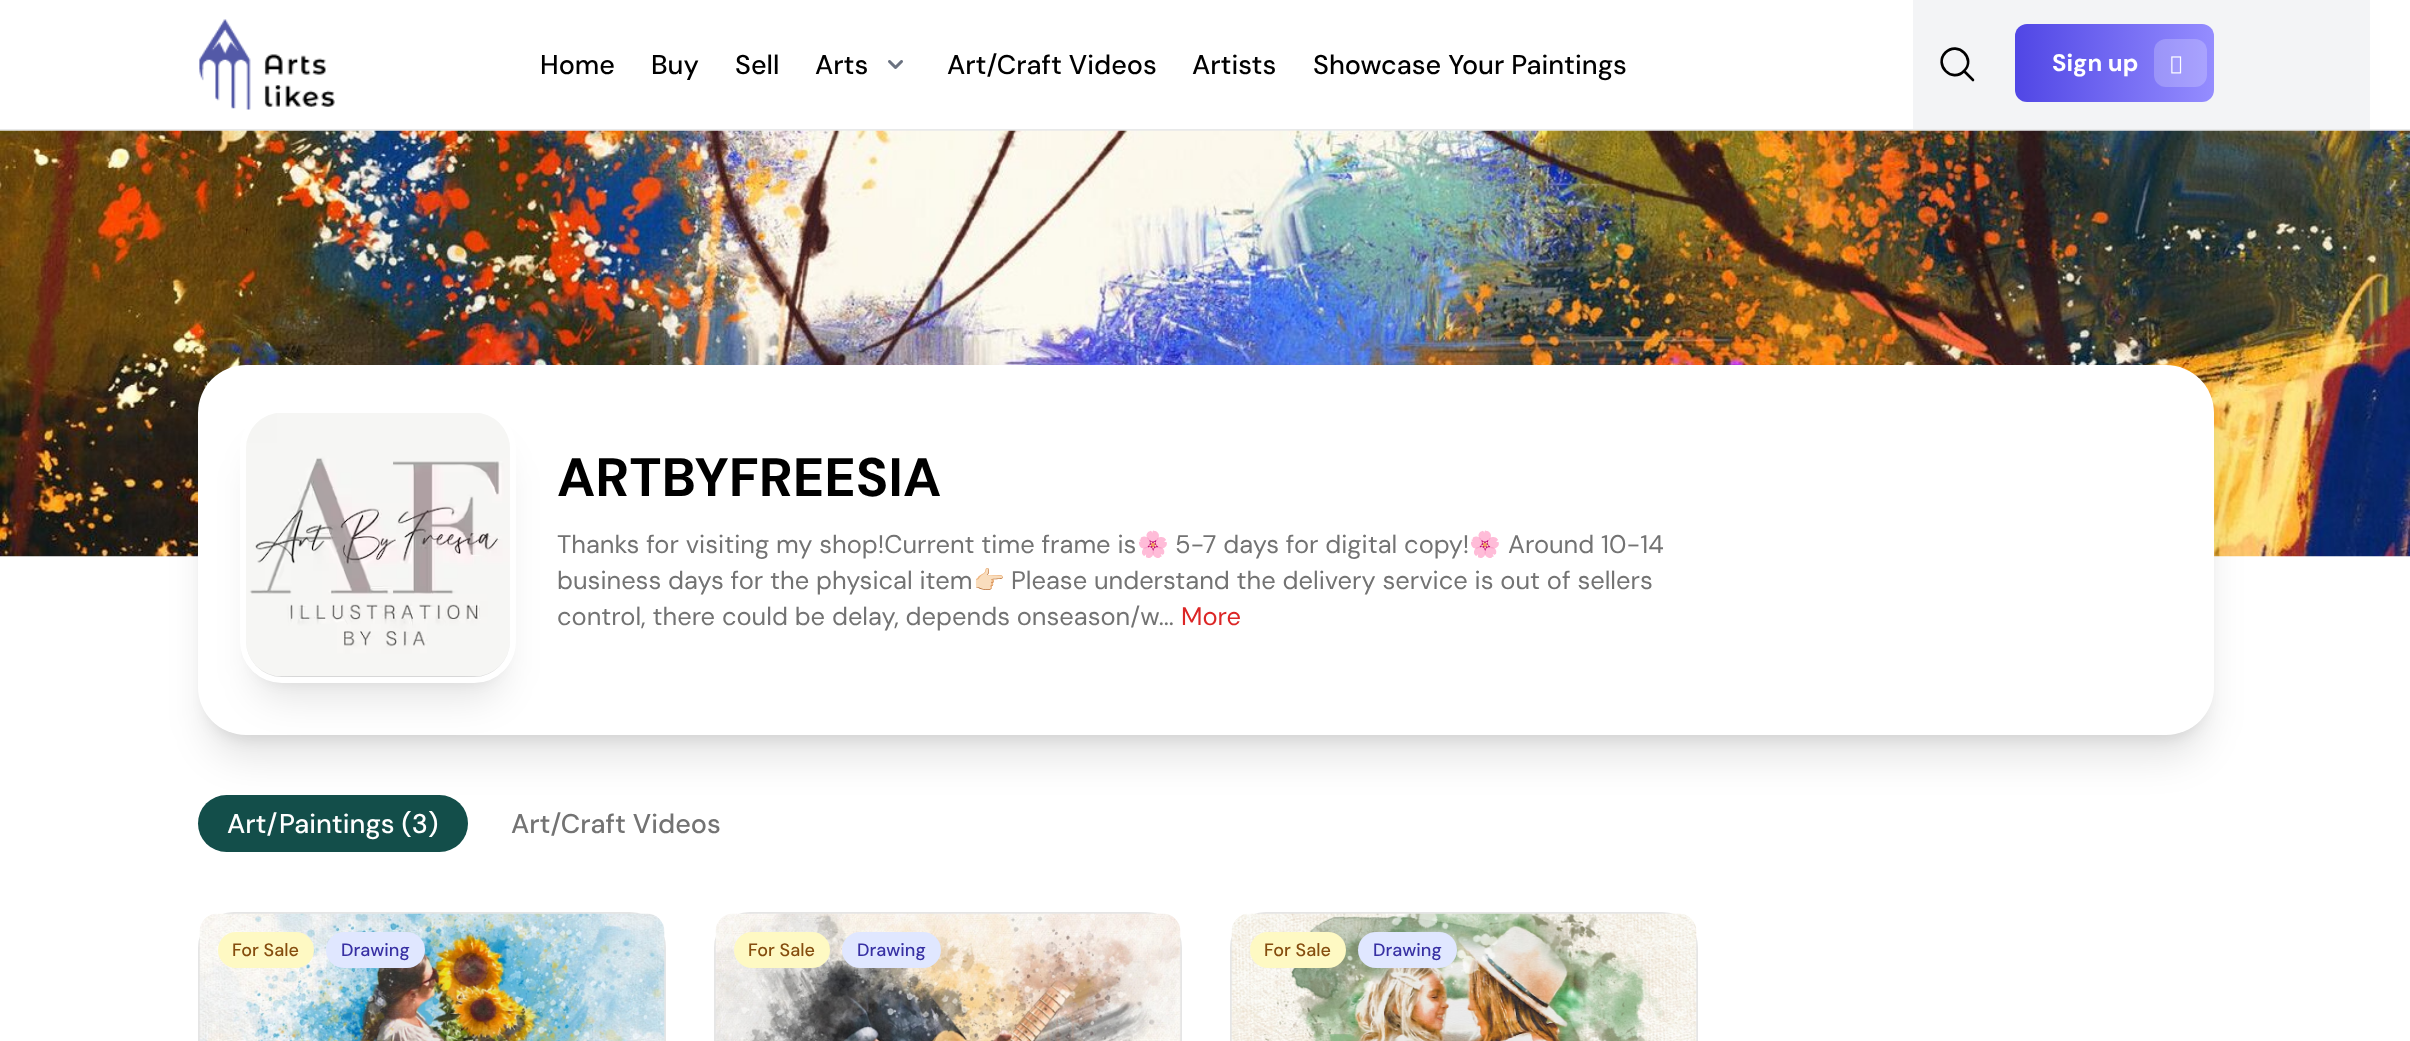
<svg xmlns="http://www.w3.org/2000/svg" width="2410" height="1041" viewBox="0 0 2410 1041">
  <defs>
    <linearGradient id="g1" gradientUnits="userSpaceOnUse" x1="2015" y1="63" x2="2214" y2="63"><stop offset="0" stop-color="#5046e5"/><stop offset="1" stop-color="#958dff"/></linearGradient>
  </defs>
  <rect width="100%" height="100%" fill="#fff"/>
  <path d="M0 129h2410v2H0z" fill="#e8e9ea"/>
  <image x="199" y="19" width="136" height="91" href="img/1.png"/>
  <image x="888" y="60" width="15" height="9" href="img/2.png"/>
  <path d="M1913 0h156v129H1913z" fill="#f3f4f6"/>
  <path d="M1973 80L1964 71M1964 71C1976.5 59 1958 40.5 1945.5 52.5C1933.5 65 1952 83.5 1964 71Z" fill="none" stroke="#000" stroke-width="2.6" stroke-linecap="round" stroke-linejoin="round"/>
  <path d="M2069 0h301v129H2069z" fill="#f3f4f6"/>
  <rect x="2015" y="24" width="199" height="78" rx="12" fill="url(#g1)"/>
  <rect x="2154" y="39" width="53" height="48" rx="12" fill="#ffffff36"/>
  <image x="2171" y="56" width="11" height="18" href="img/3.png"/>
  <image x="0" y="130" width="2410" height="427" href="img/4.png"/>
  <rect x="207" y="386" width="1998" height="352" rx="39" fill="#0000001a" filter="blur(7.5px)"/>
  <rect x="206" y="402" width="2001" height="356" rx="41" fill="#0000001a" filter="blur(19px)"/>
  <rect x="198" y="365" width="2016" height="370" rx="48" fill="#fff"/>
  <rect x="255" y="434" width="246" height="246" rx="27" fill="#0000001a" filter="blur(7.5px)"/>
  <rect x="254" y="450" width="249" height="249" rx="29" fill="#0000001a" filter="blur(19px)"/>
  <rect x="243" y="410" width="270" height="270" rx="39" fill="none" stroke="#fff" stroke-width="6"/>
  <image x="246" y="413" width="264" height="263" href="img/5.png"/>
  <rect x="198" y="795" width="270" height="57" rx="28.5" fill="#134e4a"/>
  <rect x="199" y="913" width="466" height="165" rx="35" fill="none" stroke="#e5e5e5" stroke-width="2"/>
  <image x="199" y="913" width="466" height="128" href="img/6.png"/>
  <rect x="218" y="932" width="96" height="36" rx="18" fill="#fef9c3"/>
  <rect x="326" y="932" width="99" height="36" rx="18" fill="#e0e7ff"/>
  <rect x="715" y="913" width="466" height="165" rx="35" fill="none" stroke="#e5e5e5" stroke-width="2"/>
  <image x="715" y="913" width="466" height="128" href="img/7.png"/>
  <rect x="734" y="932" width="96" height="36" rx="18" fill="#fef9c3"/>
  <rect x="842" y="932" width="99" height="36" rx="18" fill="#e0e7ff"/>
  <rect x="1231" y="913" width="466" height="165" rx="35" fill="none" stroke="#e5e5e5" stroke-width="2"/>
  <image x="1231" y="913" width="466" height="128" href="img/8.png"/>
  <rect x="1250" y="932" width="96" height="36" rx="18" fill="#fef9c3"/>
  <rect x="1358" y="932" width="99" height="36" rx="18" fill="#e0e7ff"/>
  <g font-family="DM Sans" font-size="27" font-weight="500" fill="#000">
    <text x="540" y="74">Home</text>
    <text x="651" y="74">Buy</text>
    <text x="735" y="74">Sell</text>
    <text x="815" y="74">Arts</text>
    <text x="947" y="74">Art/Craft Videos</text>
    <text x="1192" y="74">Artists</text>
    <text x="1313" y="74">Showcase Your Paintings</text>
  </g>
  <text x="2052" y="71" font-family="DM Sans" font-size="24" font-weight="bold" fill="#fff">Sign up</text>
  <text x="557" y="496" font-family="DM Sans" font-size="54" font-weight="bold" fill="#000">ARTBYFREESIA</text>
  <text x="557" y="553" font-family="DM Sans" font-size="25.5" fill="#737373">Thanks for visiting my shop!Current time frame is</text>
  <text x="1137" y="553" font-family="Noto Color Emoji" font-size="25.5" fill="#737373">🌸</text>
  <text x="1175" y="553" font-family="DM Sans" font-size="25.5" fill="#737373">5-7 days for digital copy!</text>
  <text x="1469" y="553" font-family="Noto Color Emoji" font-size="25.5" fill="#737373">🌸</text>
  <g font-family="DM Sans" font-size="25.5" fill="#737373">
    <text x="1508" y="553">Around 10-14</text>
    <text x="557" y="589">business days for the physical item</text>
  </g>
  <text x="973" y="589" font-family="Noto Color Emoji" font-size="25.5" fill="#737373">👉🏻</text>
  <g font-family="DM Sans" font-size="25.5" fill="#737373">
    <text x="1011" y="589">Please understand the delivery service is out of sellers</text>
    <text x="557" y="625">control, there could be delay, depends onseason/w...</text>
  </g>
  <text x="1181" y="625" font-family="DM Sans" font-size="25.5" fill="#dc2626">More</text>
  <text x="227" y="833" font-family="DM Sans" font-size="27" font-weight="500" fill="#fff">Art/Paintings (3)</text>
  <text x="511" y="833" font-family="DM Sans" font-size="27" font-weight="500" fill="#737373">Art/Craft Videos</text>
  <text x="232" y="956" font-family="DM Sans" font-size="18" font-weight="500" fill="#854d0e">For Sale</text>
  <text x="341" y="956" font-family="DM Sans" font-size="18" font-weight="500" fill="#3730a3">Drawing</text>
  <text x="748" y="956" font-family="DM Sans" font-size="18" font-weight="500" fill="#854d0e">For Sale</text>
  <text x="857" y="956" font-family="DM Sans" font-size="18" font-weight="500" fill="#3730a3">Drawing</text>
  <text x="1264" y="956" font-family="DM Sans" font-size="18" font-weight="500" fill="#854d0e">For Sale</text>
  <text x="1373" y="956" font-family="DM Sans" font-size="18" font-weight="500" fill="#3730a3">Drawing</text>
</svg>
